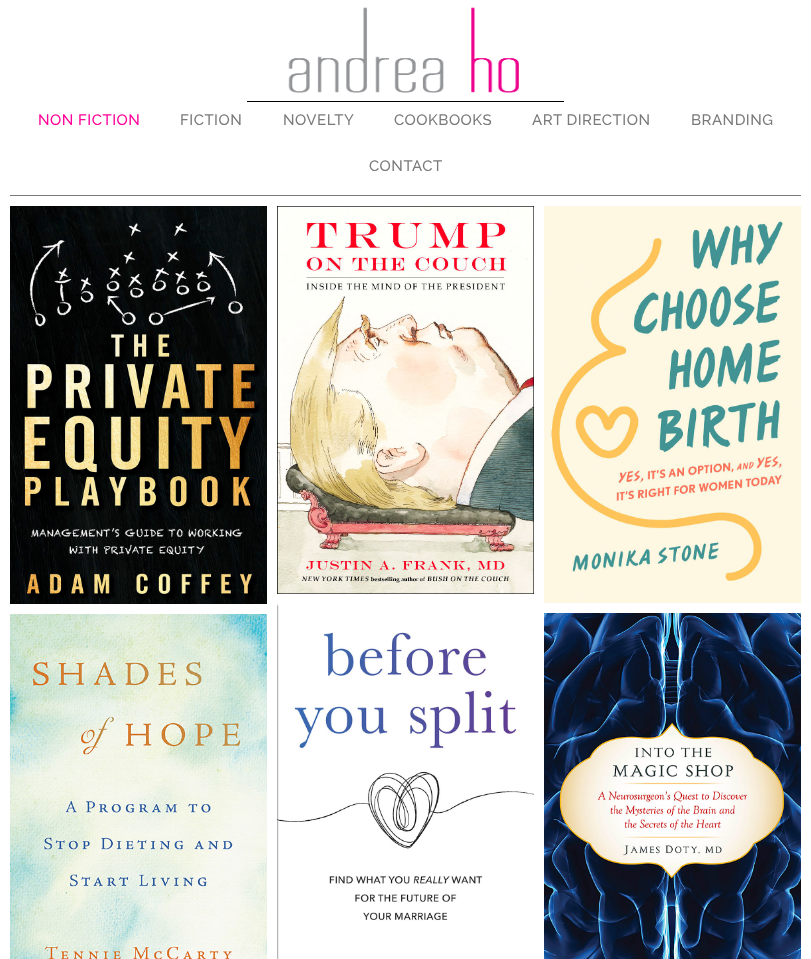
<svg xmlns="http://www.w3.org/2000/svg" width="811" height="959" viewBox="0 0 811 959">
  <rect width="100%" height="100%" fill="#fff"/>
  <image x="288" y="7" width="231" height="86" href="img/1.png"/>
  <path d="M247 101h317v1H247z" fill="#000"/>
  <path d="M10 195h791v1H10z" fill="#7a7a7a"/>
  <image x="10" y="206" width="257" height="398" href="img/2.png"/>
  <image x="277" y="206" width="257" height="388" href="img/3.png"/>
  <image x="544" y="206" width="257" height="397" href="img/4.png"/>
  <image x="10" y="614" width="257" height="345" href="img/5.png"/>
  <image x="277" y="604" width="257" height="355" href="img/6.png"/>
  <image x="544" y="613" width="257" height="346" href="img/7.png"/>
  <text x="38" y="125" font-family="Raleway" font-size="15" font-weight="500" letter-spacing="0.5" fill="#f09">NON FICTION</text>
  <g font-family="Raleway" font-size="15" font-weight="500" letter-spacing="0.5" fill="#7a7a7a">
    <text x="180" y="125">FICTION</text>
    <text x="283" y="125">NOVELTY</text>
    <text x="394" y="125">COOKBOOKS</text>
    <text x="532" y="125">ART DIRECTION</text>
    <text x="691" y="125">BRANDING</text>
    <text x="369" y="171">CONTACT</text>
  </g>
</svg>
